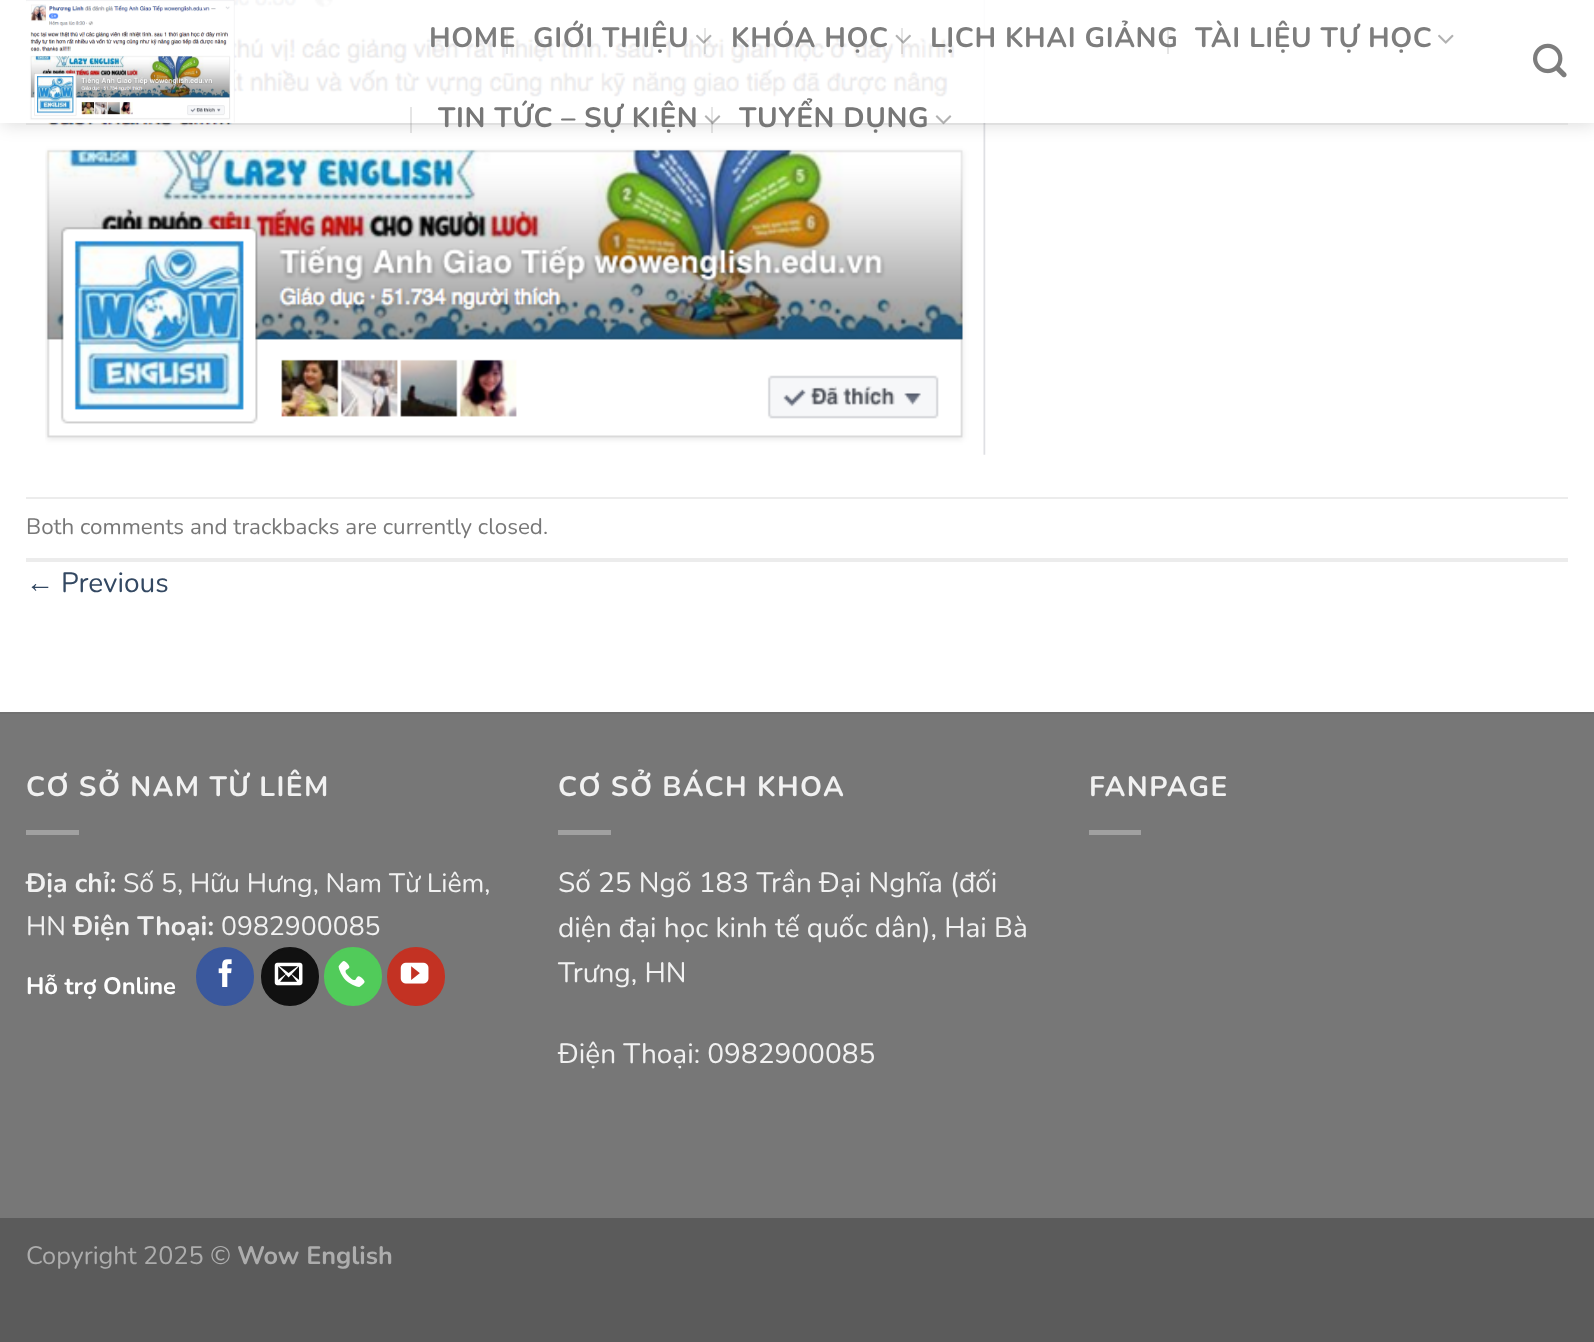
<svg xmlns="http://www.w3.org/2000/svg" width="1594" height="1342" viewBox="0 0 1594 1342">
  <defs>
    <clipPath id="clip1"><path d="M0 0H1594V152H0ZM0 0H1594V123H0Z" clip-rule="evenodd"/></clipPath>
  </defs>
  <rect width="100%" height="100%" fill="#fff"/>
  <image x="45" y="0" width="941" height="455" href="img/7.png"/>
  <g clip-path="url(#clip1)">
    <path d="M2 2h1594v122H2z" fill="#00000026" filter="blur(9px)"/>
  </g>
  <path d="M0 0h1594v123H0z" fill="#ffffffe6"/>
  <image x="26" y="0" width="209" height="123" href="img/1.png"/>
  <path d="M506 28h2v26H506z" fill="#0000001a"/>
  <image x="696" y="34" width="16" height="10" href="img/2.png"/>
  <path d="M704 28h2v26H704z" fill="#0000001a"/>
  <image x="895" y="34" width="16" height="10" href="img/3.png"/>
  <path d="M901 28h2v26H901z" fill="#0000001a"/>
  <path d="M1167 28h2v26H1167z" fill="#0000001a"/>
  <image x="1438" y="34" width="16" height="10" href="img/4.png"/>
  <path d="M410 107h2v26H410z" fill="#0000001a"/>
  <image x="704" y="115" width="17" height="10" href="img/5.png"/>
  <path d="M711 107h2v26H711z" fill="#0000001a"/>
  <image x="935" y="115" width="17" height="10" href="img/5.png"/>
  <image x="1533" y="43" width="34" height="35" href="img/6.png"/>
  <path d="M26 123h1542v2H26z" fill="#7777771a"/>
  <path d="M26 497h1542v2H26z" fill="#ececec"/>
  <path d="M26 558h1542v4H26z" fill="#ececec"/>
  <path d="M0 714h1594v504H0z" fill="#777"/>
  <path d="M0 712h1594v2H0z" fill="#717171"/>
  <path d="M26 830h53v5H26z" fill="#a0a0a0"/>
  <rect x="197" y="948" width="56" height="57" rx="28" fill="#3a589d" stroke="#3a589d" stroke-width="2"/>
  <image x="218" y="959" width="14" height="28" href="img/8.png"/>
  <rect x="262" y="948" width="56" height="57" rx="28" fill="#111" stroke="#111" stroke-width="2"/>
  <image x="274" y="962" width="29" height="24" href="img/9.png"/>
  <rect x="325" y="948" width="56" height="57" rx="28" fill="#51cb5a" stroke="#51cb5a" stroke-width="2"/>
  <image x="338" y="961" width="27" height="26" href="img/10.png"/>
  <rect x="388" y="948" width="56" height="57" rx="28" fill="#c33223" stroke="#c33223" stroke-width="2"/>
  <image x="400" y="962" width="29" height="22" href="img/11.png"/>
  <path d="M558 830h53v5H558z" fill="#a0a0a0"/>
  <path d="M1089 830h52v5H1089z" fill="#a0a0a0"/>
  <path d="M0 1218h1594v124H0z" fill="#5b5b5b"/>
  <g font-family="Nunito" font-size="28" font-weight="bold" letter-spacing="0.6" fill="#7d7d7d">
    <text x="429" y="47">HOME</text>
    <text x="533" y="47">GIỚI THIỆU</text>
    <text x="731" y="47">KHÓA HỌC</text>
    <text x="930" y="47">LỊCH KHAI GIẢNG</text>
    <text x="1195" y="47">TÀI LIỆU TỰ HỌC</text>
  </g>
  <g font-family="Nunito" font-size="28" font-weight="bold" letter-spacing="0.6" fill="#777">
    <text x="438" y="127">TIN TỨC – SỰ KIỆN</text>
    <text x="739" y="127">TUYỂN DỤNG</text>
  </g>
  <text x="26" y="534" font-family="Nunito" font-size="22.4" fill="#777">Both comments and trackbacks are currently closed.</text>
  <text x="26" y="592" font-family="Liberation Sans" font-size="28" fill="#334862">←</text>
  <text x="61" y="592" font-family="Nunito" font-size="28" fill="#334862">Previous</text>
  <text x="26" y="796" font-family="Nunito" font-size="28" font-weight="bold" letter-spacing="1.4" fill="#f1f1f1">CƠ SỞ NAM TỪ LIÊM</text>
  <text x="26" y="892" font-family="Nunito" font-size="26.6" font-weight="bold" fill="#f1f1f1">Địa chỉ:</text>
  <g font-family="Nunito" font-size="26.6" fill="#f1f1f1">
    <text x="123" y="892">Số 5, Hữu Hưng, Nam Từ Liêm,</text>
    <text x="26" y="935">HN</text>
  </g>
  <text x="73" y="935" font-family="Nunito" font-size="26.6" font-weight="bold" fill="#f1f1f1">Điện Thoại:</text>
  <text x="221" y="935" font-family="Nunito" font-size="26.6" fill="#f1f1f1">0982900085</text>
  <text x="26" y="994" font-family="Nunito" font-size="23.75" font-weight="bold" fill="#fff">Hỗ trợ Online</text>
  <text x="558" y="796" font-family="Nunito" font-size="28" font-weight="bold" letter-spacing="1.4" fill="#f1f1f1">CƠ SỞ BÁCH KHOA</text>
  <g font-family="Nunito" font-size="28" fill="#f1f1f1">
    <text x="558" y="892">Số 25 Ngõ 183 Trần Đại Nghĩa (đối</text>
    <text x="558" y="937">diện đại học kinh tế quốc dân), Hai Bà</text>
    <text x="558" y="982">Trưng, HN</text>
    <text x="558" y="1063">Điện Thoại: 0982900085</text>
  </g>
  <text x="1089" y="796" font-family="Nunito" font-size="28" font-weight="bold" letter-spacing="1.4" fill="#f1f1f1">FANPAGE</text>
  <text x="26" y="1264" font-family="Nunito" font-size="25.25" fill="#adadad">Copyright 2025 ©</text>
  <text x="237" y="1264" font-family="Nunito" font-size="25.25" font-weight="bold" fill="#adadad">Wow English</text>
</svg>
